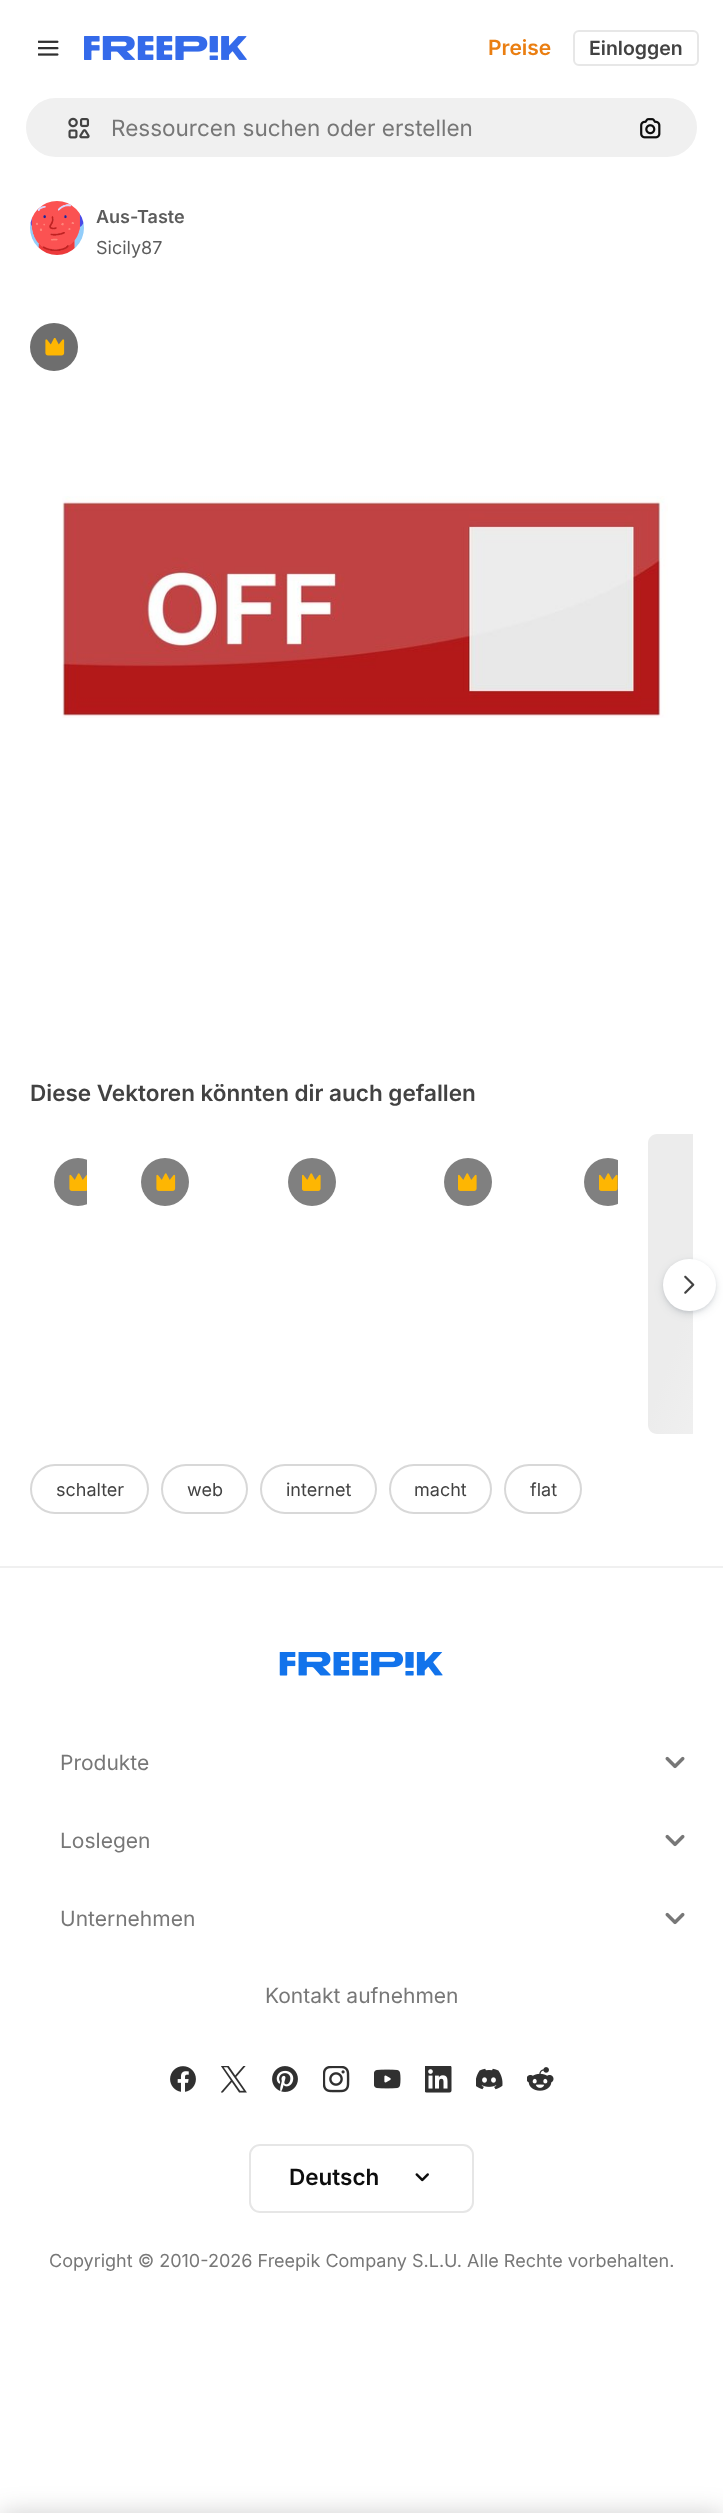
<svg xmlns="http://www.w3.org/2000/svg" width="723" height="2513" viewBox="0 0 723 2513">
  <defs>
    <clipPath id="clip1"><rect x="30" y="1134" width="57" height="300" rx="24"/></clipPath>
    <clipPath id="clip2"><rect x="560" y="1134" width="58" height="300" rx="24"/></clipPath>
    <linearGradient id="g1" gradientUnits="userSpaceOnUse" x1="669" y1="1075" x2="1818" y2="1493"><stop offset="0.08" stop-color="#ececec"/><stop offset="0.18" stop-color="#f5f5f5"/><stop offset="0.33" stop-color="#ececec"/></linearGradient>
  </defs>
  <rect width="100%" height="100%" fill="#fff"/>
  <image x="38" y="40" width="21" height="16" href="img/1.png"/>
  <image x="84" y="36" width="163" height="24" href="img/2.png"/>
  <rect x="574" y="31" width="124" height="34" rx="5" fill="none" stroke="#e7e7e7" stroke-width="2"/>
  <rect x="25" y="97" width="673" height="61" rx="30.5" fill="#f0f0f0" stroke="#fff" stroke-width="2"/>
  <image x="68" y="117" width="22" height="22" href="img/3.png"/>
  <image x="640" y="118" width="21" height="21" href="img/4.png"/>
  <image x="30" y="201" width="54" height="54" href="img/5.png"/>
  <circle cx="54" cy="347" r="24" fill="#6e6e6e"/>
  <image x="45" y="338" width="20" height="18" href="img/6.png"/>
  <image x="62" y="496" width="606" height="222" href="img/7.png"/>
  <g clip-path="url(#clip1)">
    <circle cx="78" cy="1182" r="24" fill="#808080"/>
  </g>
  <image x="69" y="1173" width="18" height="18" href="img/8.png"/>
  <circle cx="165" cy="1182" r="24" fill="#808080"/>
  <image x="156" y="1173" width="20" height="18" href="img/9.png"/>
  <circle cx="312" cy="1182" r="24" fill="#808080"/>
  <image x="302" y="1173" width="19" height="18" href="img/10.png"/>
  <circle cx="468" cy="1182" r="24" fill="#808080"/>
  <image x="458" y="1173" width="19" height="18" href="img/10.png"/>
  <g clip-path="url(#clip2)">
    <circle cx="608" cy="1182" r="24" fill="#808080"/>
  </g>
  <image x="599" y="1173" width="19" height="18" href="img/10.png"/>
  <path d="M657 1134H693V1434H657C652 1434 648 1430 648 1425V1143C648 1138 652 1134 657 1134Z" fill="url(#g1)"/>
  <rect x="663" y="1262" width="53" height="52" rx="26" fill="#37495726" filter="blur(4px)"/>
  <rect x="663" y="1260" width="53" height="53" rx="26.5" fill="#3749571a" filter="blur(1.5px)"/>
  <rect x="663" y="1259" width="53" height="52" rx="26" fill="#fff"/>
  <image x="684" y="1275" width="11" height="19" href="img/11.png"/>
  <rect x="31" y="1465" width="117" height="48" rx="24" fill="none" stroke="#d8d8d8" stroke-width="2"/>
  <rect x="162" y="1465" width="85" height="48" rx="24" fill="none" stroke="#d8d8d8" stroke-width="2"/>
  <rect x="261" y="1465" width="115" height="48" rx="24" fill="none" stroke="#d8d8d8" stroke-width="2"/>
  <rect x="390" y="1465" width="101" height="48" rx="24" fill="none" stroke="#d8d8d8" stroke-width="2"/>
  <rect x="505" y="1465" width="76" height="48" rx="24" fill="none" stroke="#d8d8d8" stroke-width="2"/>
  <path d="M0 1566h723v2H0z" fill="#f0f0f0"/>
  <image x="279" y="1652" width="164" height="24" href="img/12.png"/>
  <image x="665" y="1756" width="20" height="13" href="img/13.png"/>
  <image x="665" y="1834" width="20" height="13" href="img/13.png"/>
  <image x="665" y="1912" width="20" height="13" href="img/13.png"/>
  <image x="170" y="2066" width="26" height="26" href="img/14.png"/>
  <image x="221" y="2066" width="26" height="27" href="img/15.png"/>
  <image x="272" y="2066" width="26" height="26" href="img/16.png"/>
  <image x="323" y="2066" width="27" height="27" href="img/17.png"/>
  <image x="374" y="2069" width="27" height="20" href="img/18.png"/>
  <image x="425" y="2066" width="27" height="27" href="img/19.png"/>
  <image x="476" y="2068" width="27" height="22" href="img/20.png"/>
  <image x="527" y="2067" width="27" height="24" href="img/21.png"/>
  <rect x="250" y="2145" width="223" height="67" rx="10" fill="none" stroke="#e6e6e6" stroke-width="2"/>
  <image x="415" y="2173" width="14" height="9" href="img/22.png"/>
  <path d="M0 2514h723v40H0z" fill="#00000033" filter="blur(13.5px)"/>
  <text x="488" y="55" font-family="Inter" font-size="21" font-weight="600" fill="#ea7e11">Preise</text>
  <text x="589" y="55" font-family="Inter" font-size="19.5" font-weight="600" fill="#424242">Einloggen</text>
  <text x="111" y="136" font-family="Inter" font-size="22.5" fill="#777">Ressourcen suchen oder erstellen</text>
  <text x="96" y="223" font-family="Inter" font-size="18" font-weight="600" fill="#5c5c5c">Aus-Taste</text>
  <text x="96" y="254" font-family="Inter" font-size="18" fill="#5c5c5c">Sicily87</text>
  <text x="30" y="1101" font-family="Inter" font-size="22.5" font-weight="600" fill="#424242">Diese Vektoren könnten dir auch gefallen</text>
  <g font-family="Inter" font-size="18" fill="#424242">
    <text x="56" y="1496">schalter</text>
    <text x="187" y="1496">web</text>
    <text x="286" y="1496">internet</text>
    <text x="414" y="1496">macht</text>
    <text x="530" y="1496">flat</text>
  </g>
  <g font-family="Inter" font-size="21" fill="#777">
    <text x="60" y="1770">Produkte</text>
    <text x="60" y="1848">Loslegen</text>
    <text x="60" y="1926">Unternehmen</text>
    <text x="265" y="2003">Kontakt aufnehmen</text>
  </g>
  <text x="289" y="2185" font-family="Inter" font-size="22.5" font-weight="600" fill="#0d0d0d">Deutsch</text>
  <g font-family="Inter" font-size="18" fill="#777">
    <text x="49" y="2267">Copyright © 2010-</text>
    <text x="208" y="2267">2026 Freepik Company S.L.U. Alle Rechte vorbehalten.</text>
  </g>
</svg>
